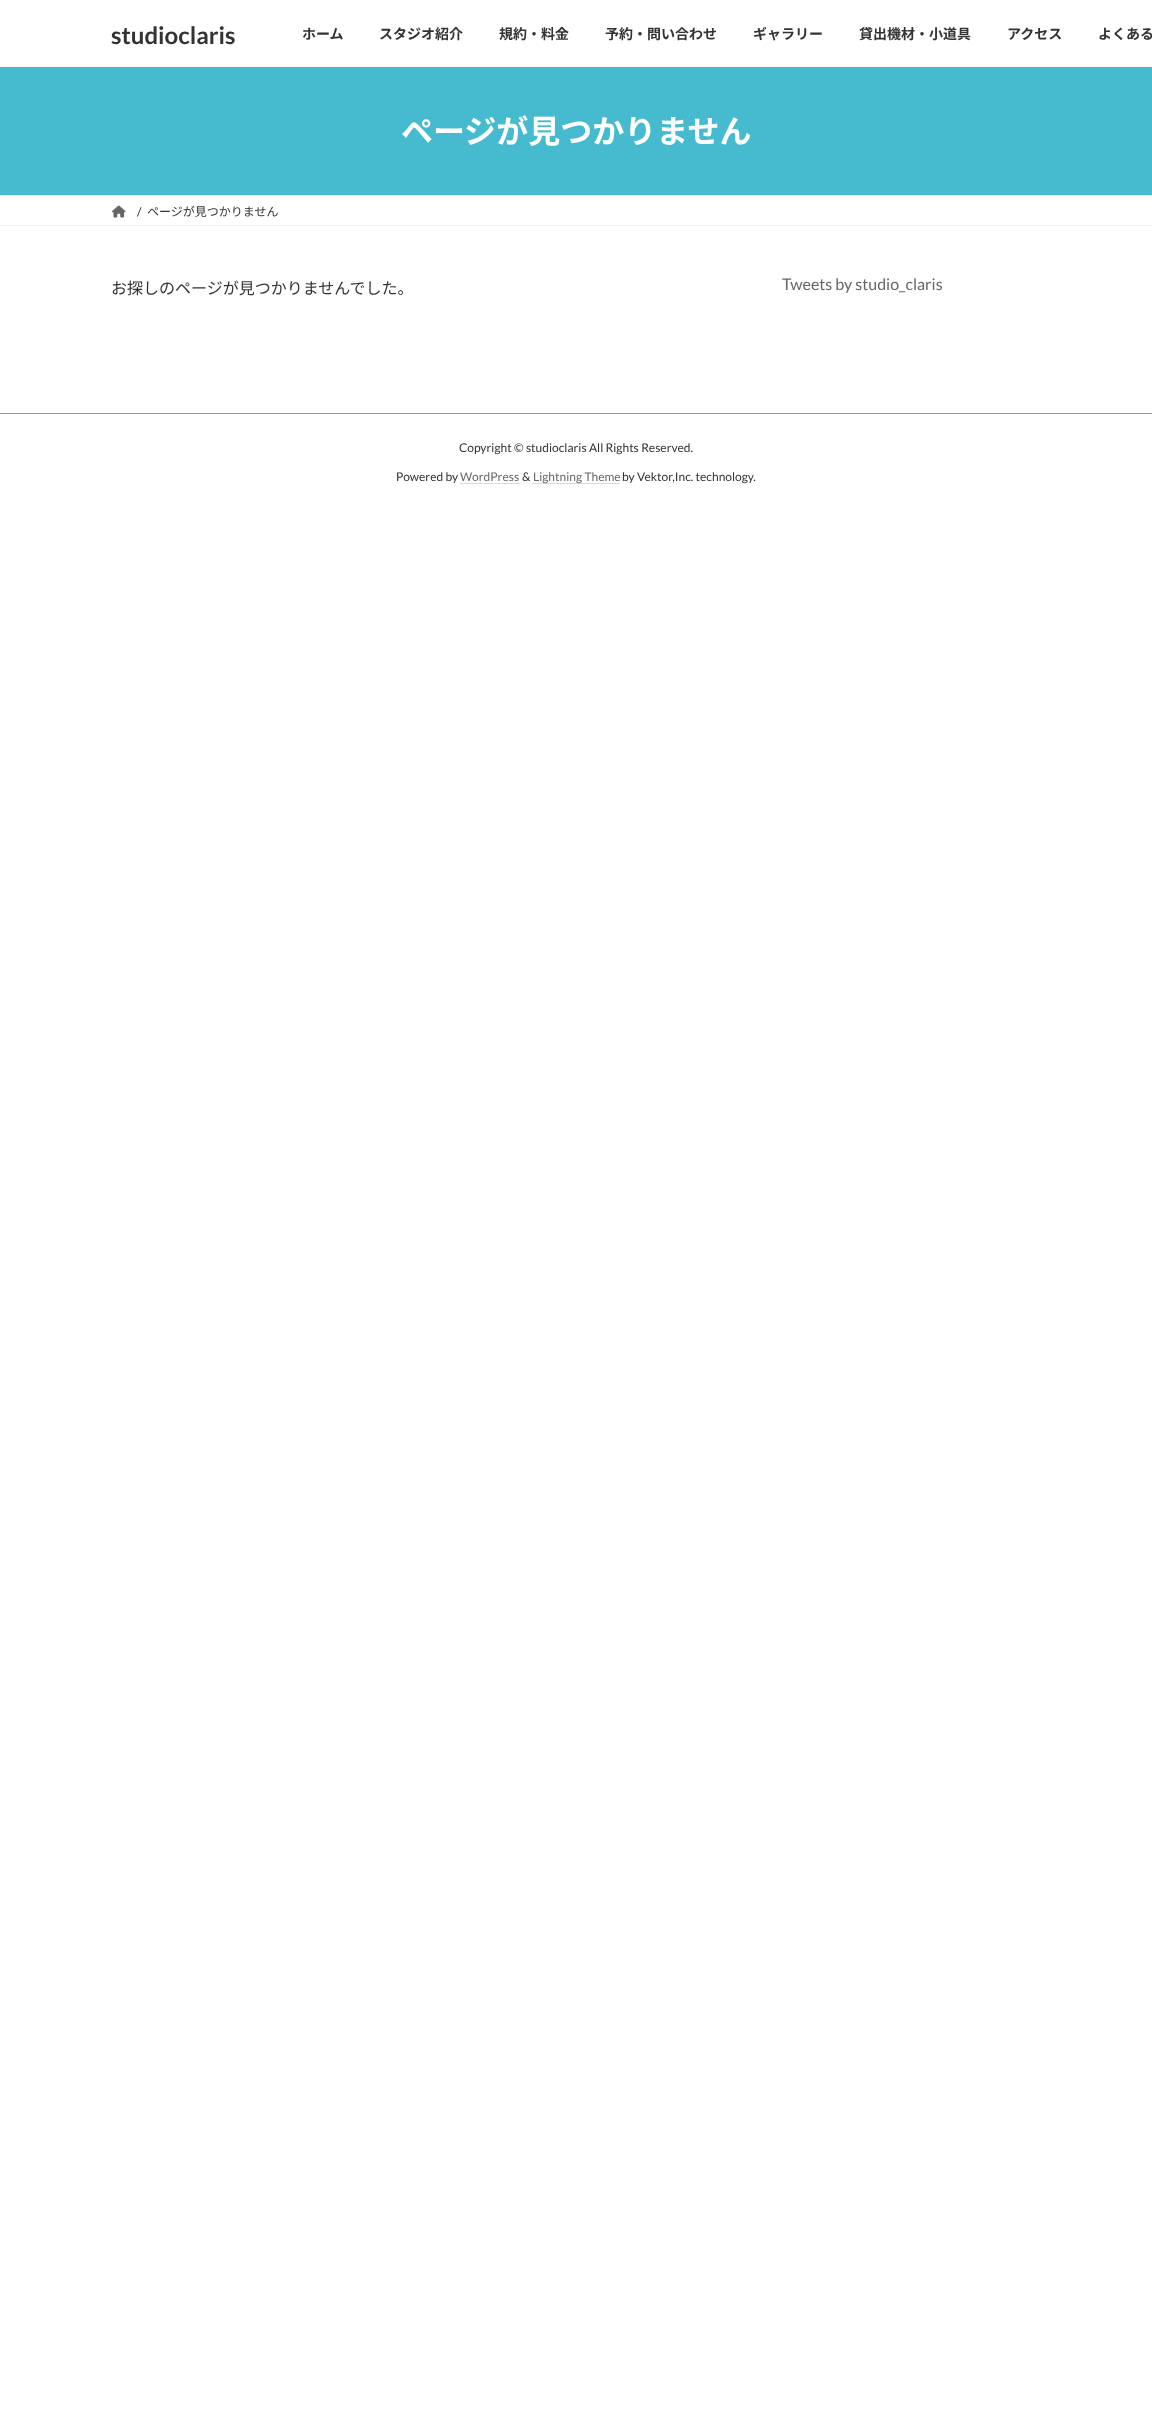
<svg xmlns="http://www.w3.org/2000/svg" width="1152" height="2427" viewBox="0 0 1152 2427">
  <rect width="100%" height="100%" fill="#fff"/>
  <path d="M0 67h1152v128H0z" fill="#46bace"/>
  <path d="M0 195h1152v1H0z" fill="#f0f0f0"/>
  <path d="M0 225h1152v1H0z" fill="#f0f0f0"/>
  <image x="112" y="205" width="14" height="13" href="img/1.png"/>
  <path d="M0 413h1152v1H0z" fill="#46bace"/>
  <path d="M460.5 483.5H519.5" fill="none" stroke="#b3b3b3" stroke-dasharray="1 1"/>
  <path d="M532.5 483.5H620" fill="none" stroke="#b3b3b3" stroke-dasharray="1 1"/>
  <text x="111" y="44" font-family="Lato" font-size="24" font-weight="bold" fill="#333">studioclaris</text>
  <g font-family="Noto Sans JP" font-size="14" font-weight="bold" fill="#333">
    <text x="302" y="39">ホーム</text>
    <text x="379" y="39">スタジオ紹介</text>
    <text x="499" y="39">規約・料金</text>
    <text x="605" y="39">予約・問い合わせ</text>
    <text x="753" y="39">ギャラリー</text>
    <text x="859" y="39">貸出機材・小道具</text>
    <text x="1007" y="39">アクセス</text>
    <text x="1098" y="39">よくある</text>
  </g>
  <text x="401" y="143" font-family="Noto Sans JP" font-size="32" font-weight="bold" fill="#fff">ページが見つかりません</text>
  <text x="137" y="216" font-family="Lato" font-size="12" fill="#333">/</text>
  <text x="147" y="216" font-family="Noto Sans JP" font-size="12" fill="#333">ページが見つかりません</text>
  <text x="111" y="294" font-family="Noto Sans JP" font-size="16" fill="#333">お探しのページが見つかりませんでした。</text>
  <text x="782" y="290" font-family="Lato" font-size="16" fill="#666">Tweets by studio_claris</text>
  <g font-family="Lato" font-size="12" fill="#333">
    <text x="459" y="452">Copyright © studioclaris All Rights Reserved.</text>
    <text x="396" y="481">Powered by</text>
  </g>
  <text x="460" y="481" font-family="Lato" font-size="12" fill="#666">WordPress</text>
  <text x="522" y="481" font-family="Lato" font-size="12" fill="#333">&amp;</text>
  <text x="533" y="481" font-family="Lato" font-size="12" fill="#666">Lightning Theme</text>
  <text x="622" y="481" font-family="Lato" font-size="12" fill="#333">by Vektor,Inc. technology.</text>
</svg>
